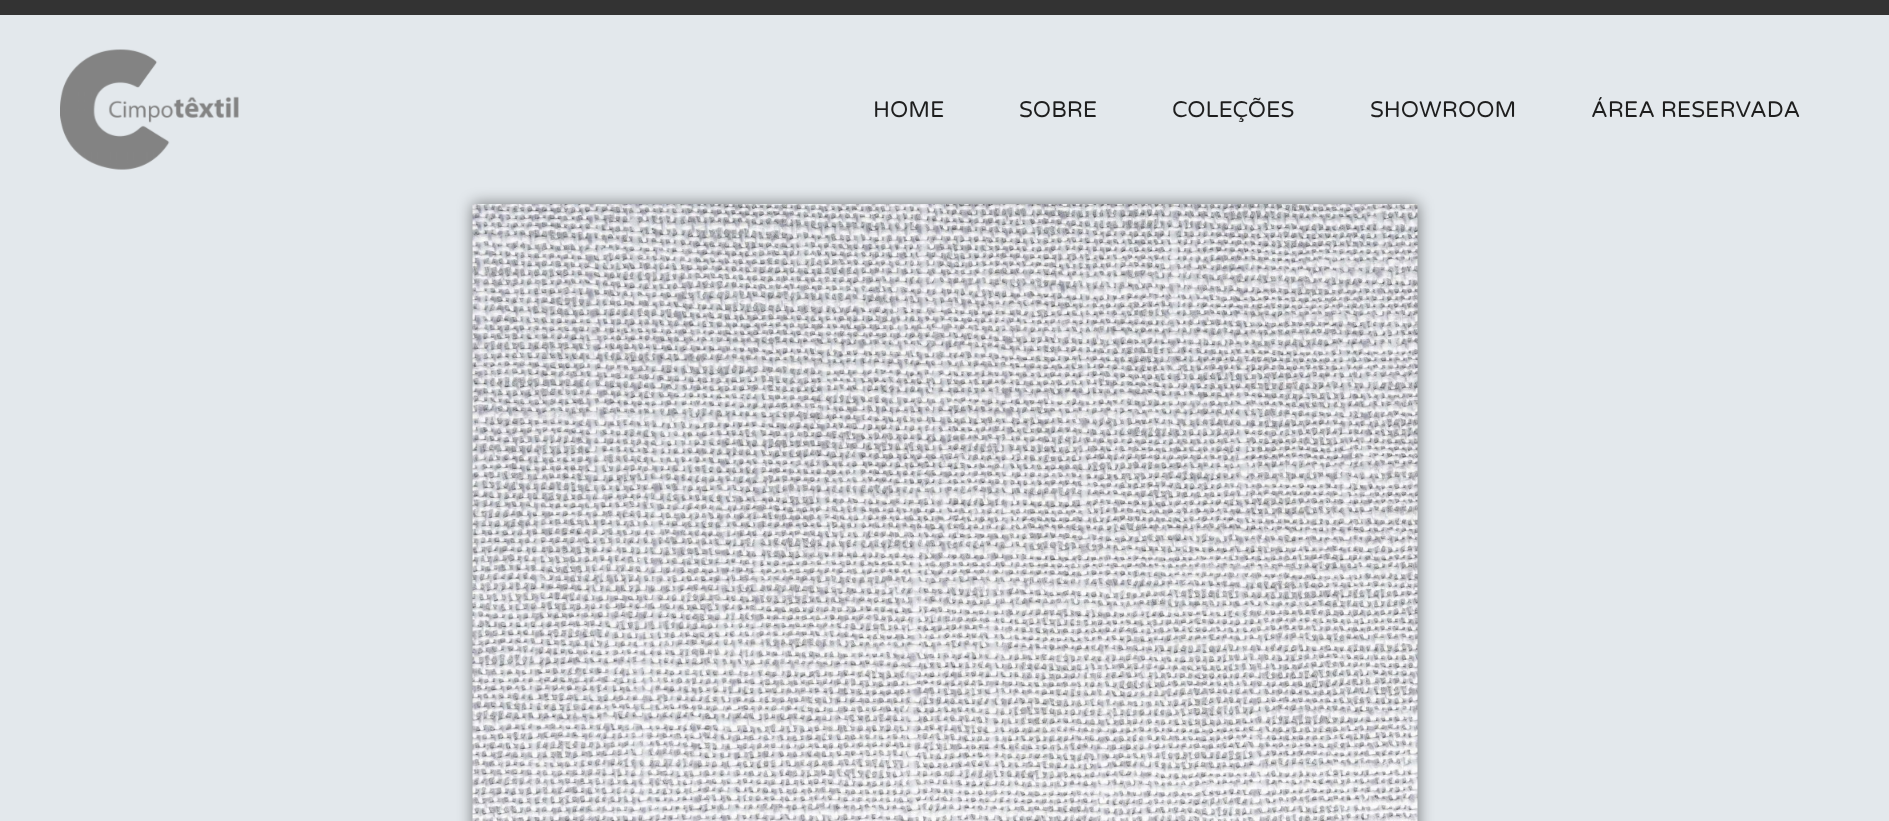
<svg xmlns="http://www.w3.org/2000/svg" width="1889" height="821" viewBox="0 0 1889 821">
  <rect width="100%" height="100%" fill="#e3e8ec"/>
  <path d="M0 0h1889v15H0z" fill="#333"/>
  <image x="60" y="49" width="179" height="121" href="img/1.png"/>
  <path d="M473 204h945v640H473z" fill="#00000080" filter="blur(7.5px)"/>
  <image x="472" y="204" width="946" height="617" href="img/2.png"/>
  <g font-family="Varela Round" font-size="22.5" fill="#1e1e1e">
    <text x="873" y="117">HOME</text>
    <text x="1019" y="117">SOBRE</text>
    <text x="1172" y="117">COLEÇÕES</text>
    <text x="1370" y="117">SHOWROOM</text>
    <text x="1591" y="117">ÁREA RESERVADA</text>
  </g>
</svg>
